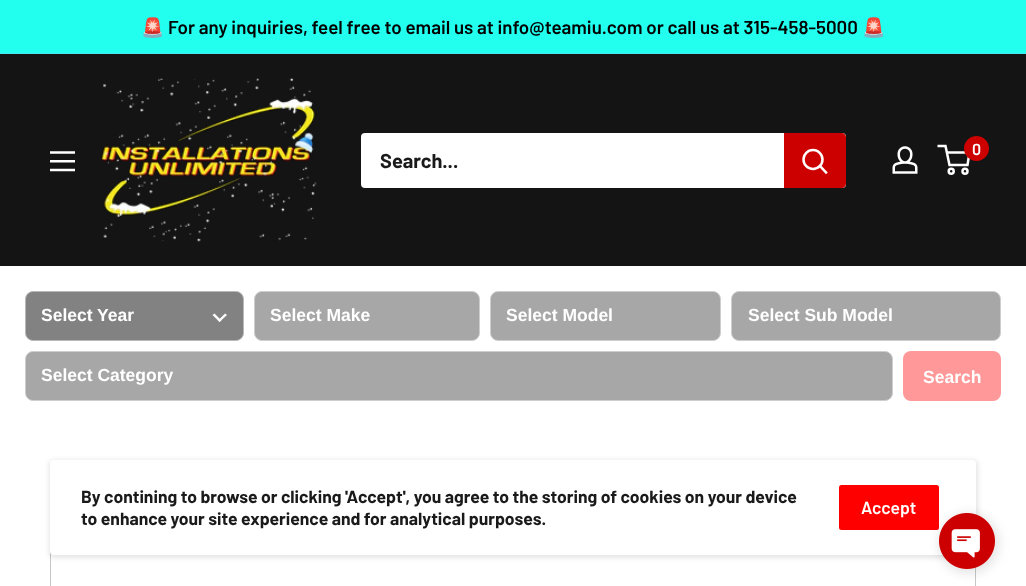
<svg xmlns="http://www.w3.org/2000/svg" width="1026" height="586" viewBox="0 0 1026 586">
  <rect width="100%" height="100%" fill="#fff"/>
  <path d="M0 0h1026v53H0z" fill="#23ffef"/>
  <path d="M0 53h1026v1H0z" fill="#49e7ef"/>
  <path d="M0 54h1026v212H0z" fill="#141414"/>
  <image x="101" y="78" width="216" height="164" href="img/1.png"/>
  <image x="892" y="146" width="26" height="28" href="img/2.png"/>
  <circle cx="951.2" cy="171.2" r="2.5" fill="none" stroke="#fff" stroke-width="2.5"/>
  <circle cx="965" cy="171.2" r="2.5" fill="none" stroke="#fff" stroke-width="2.5"/>
  <path d="M946.5 152.5H969.5L967.5 165H949.5L945.5 146H937.5" fill="none" stroke="#fff" stroke-width="2.5"/>
  <circle cx="976.5" cy="148.5" r="12.5" fill="#cd0000"/>
  <image x="50" y="151" width="25" height="21" href="img/3.png"/>
  <rect x="361" y="133" width="485" height="55" rx="4" fill="#fff"/>
  <path d="M784 133H842C844 133 846 135 846 137V184C846 186 844 188 842 188H784Z" fill="#cd0000"/>
  <path d="M826 172.5L820 166" fill="none" stroke="#fff" stroke-width="2.5" stroke-linecap="square"/>
  <circle cx="813" cy="159.5" r="9.5" fill="none" stroke="#fff" stroke-width="2.5"/>
  <rect x="25.5" y="291.5" width="218" height="49" rx="7.5" fill="#828282" stroke="#b9b9b9"/>
  <path d="M225 313.5L227 315L219.5 322L218 320.5Z" fill="#fcfcfc"/>
  <path d="M214.5 313.5L221.5 320.5L219.5 322L212.5 315Z" fill="#fcfcfc"/>
  <rect x="254.5" y="291.5" width="225" height="49" rx="7.5" fill="#a7a7a7" stroke="#cecece"/>
  <rect x="490.5" y="291.5" width="230" height="49" rx="7.5" fill="#a7a7a7" stroke="#cecece"/>
  <rect x="731.5" y="291.5" width="269" height="49" rx="7.5" fill="#a7a7a7" stroke="#cecece"/>
  <rect x="25.5" y="351.5" width="867" height="49" rx="7.5" fill="#a7a7a7" stroke="#cecece"/>
  <rect x="903" y="351" width="98" height="50" rx="8" fill="#ff9898"/>
  <path d="M50.5 516.5h925v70H50.5z" fill="none" stroke="#c6c8c8"/>
  <rect x="49" y="460" width="929" height="98" rx="5" fill="#0000001a" filter="blur(2.5px)"/>
  <rect x="50" y="460" width="926" height="95" rx="4" fill="#fff"/>
  <rect x="839" y="485" width="100" height="45" rx="2.5" fill="#f00"/>
  <rect x="939" y="513" width="61" height="61" rx="30.5" fill="#00000012" filter="blur(5.5px)"/>
  <rect x="939" y="515" width="56" height="56" rx="28" fill="#0000000d" filter="blur(6px)"/>
  <image x="939" y="513" width="56" height="56" href="img/4.png"/>
  <text x="141" y="34" font-family="Noto Color Emoji" font-size="18.75" font-weight="bold" fill="#000">🚨</text>
  <text x="168" y="34" font-family="Barlow" font-size="18.75" font-weight="600" fill="#000">For any inquiries, feel free to email us at info@teamiu.com or call us at 315-458-5000</text>
  <text x="862" y="34" font-family="Noto Color Emoji" font-size="18.75" font-weight="bold" fill="#000">🚨</text>
  <text x="972" y="155" font-family="Barlow" font-size="16" font-weight="600" fill="#fff">0</text>
  <text x="380" y="168" font-family="Barlow" font-size="20" font-weight="bold" fill="#1a1a1a">Search...</text>
  <g font-family="Liberation Sans" font-size="17.5" font-weight="bold" fill="#fff">
    <text x="41" y="321">Select Year</text>
    <text x="270" y="321">Select Make</text>
    <text x="506" y="321">Select Model</text>
    <text x="748" y="321">Select Sub Model</text>
    <text x="41" y="381">Select Category</text>
    <text x="923" y="383">Search</text>
  </g>
  <g font-family="Barlow" font-size="17.5" font-weight="bold" fill="#1a1a1a">
    <text x="81" y="503">By contining to browse or clicking 'Accept', you agree to the storing of cookies on your device</text>
    <text x="81" y="525">to enhance your site experience and for analytical purposes.</text>
  </g>
  <text x="861" y="514" font-family="Barlow" font-size="17.5" font-weight="600" fill="#fff">Accept</text>
</svg>
